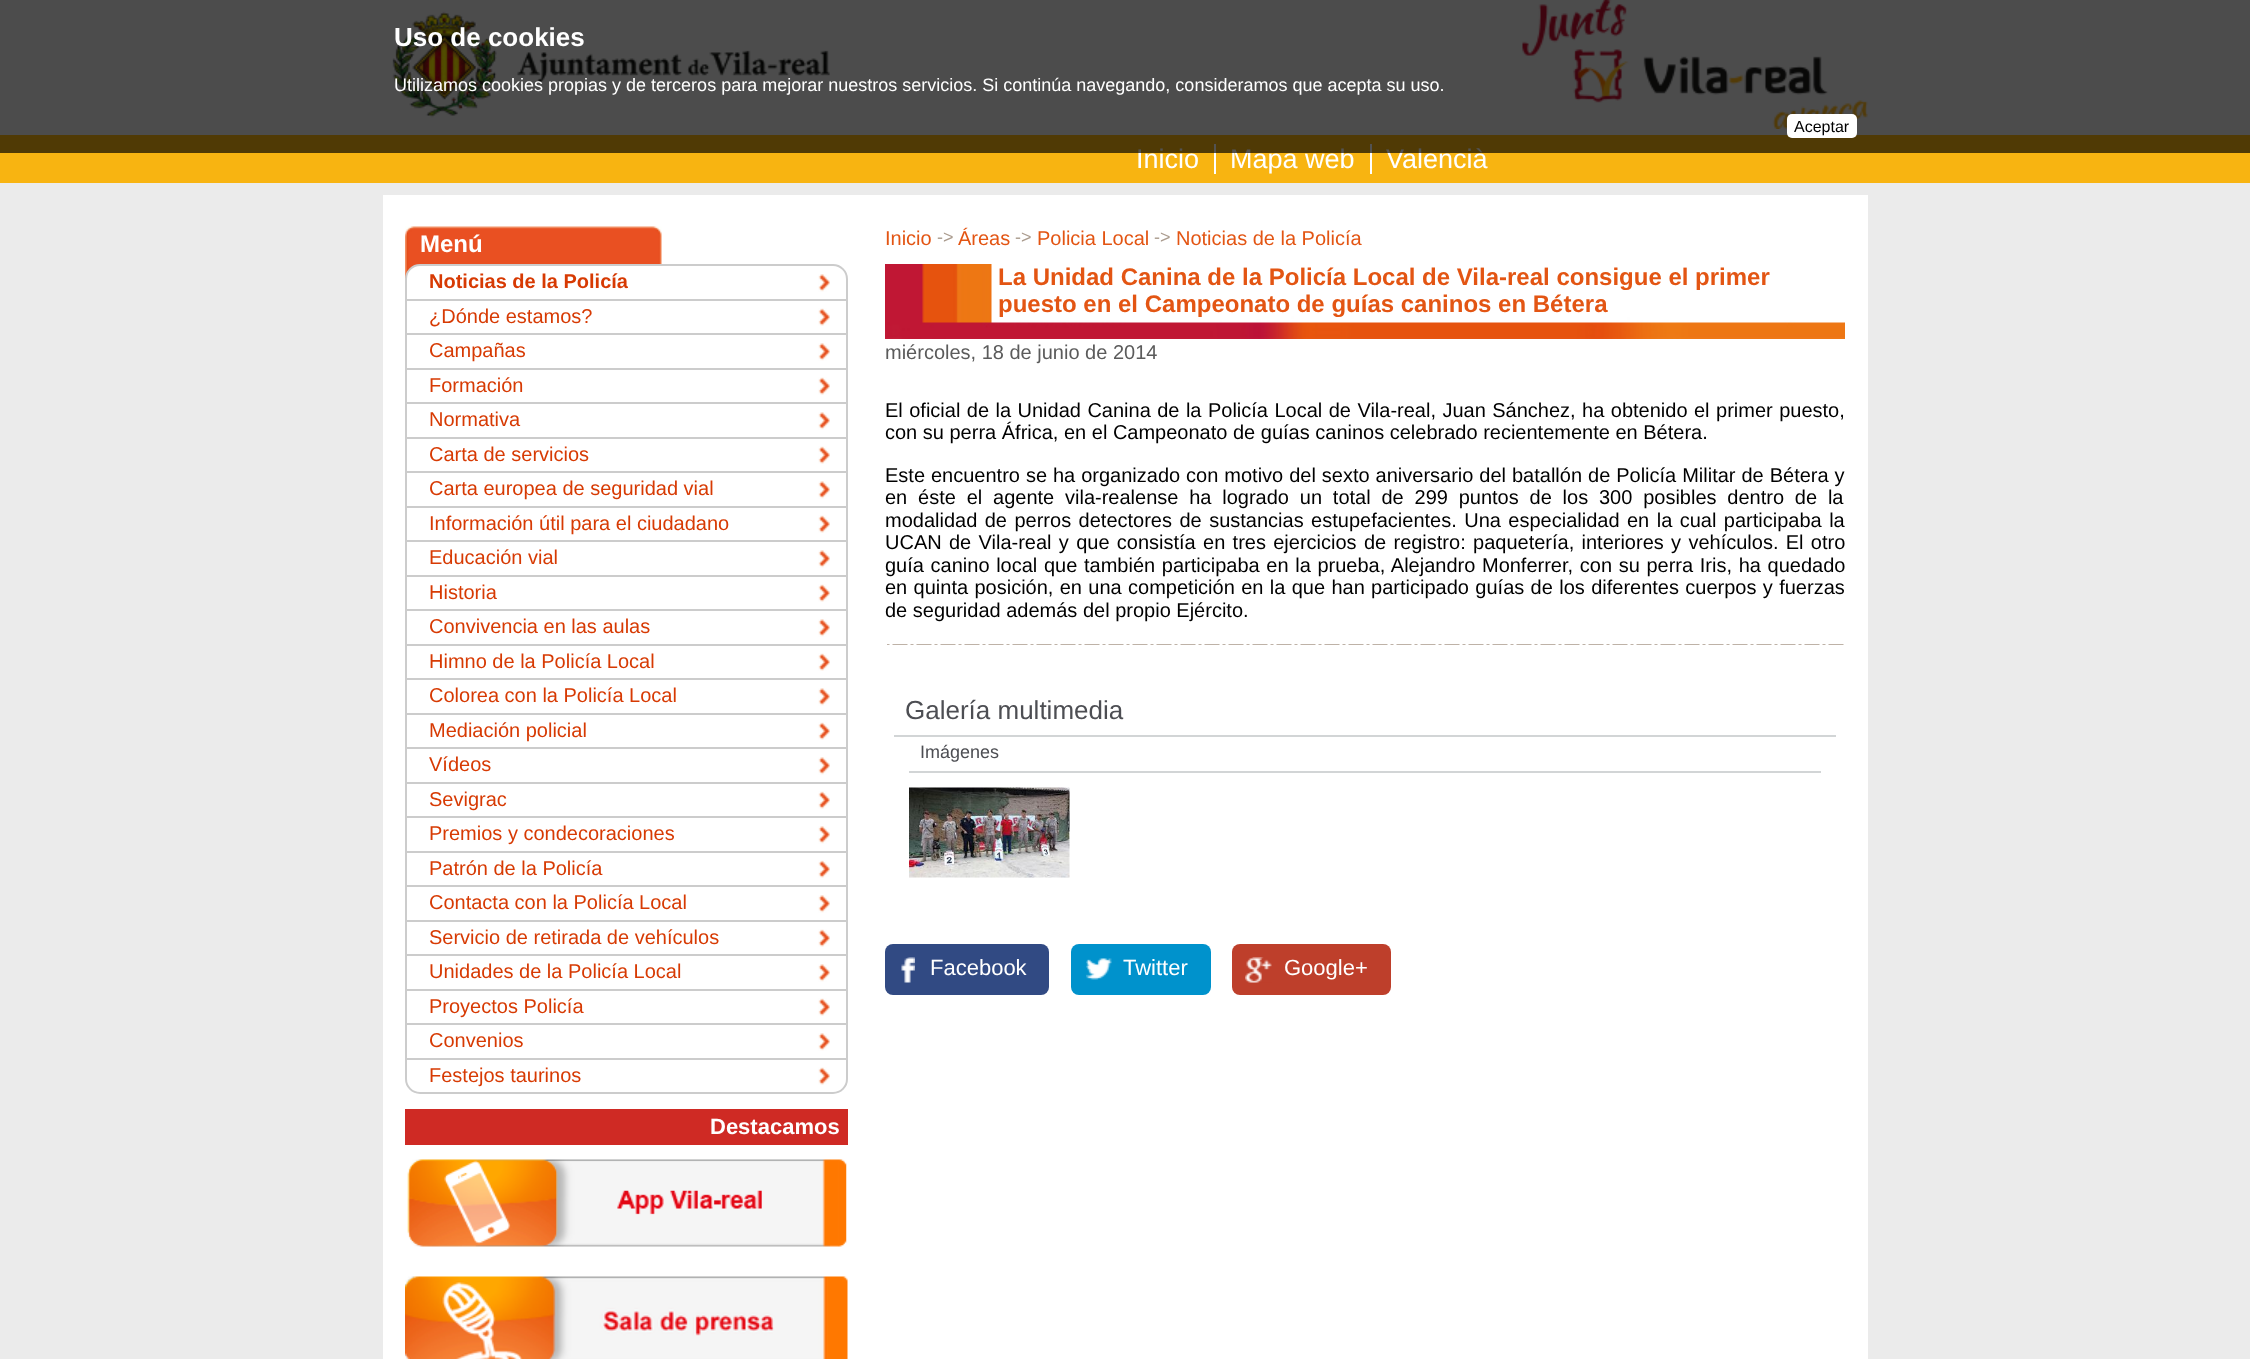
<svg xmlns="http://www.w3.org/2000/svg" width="2250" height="1359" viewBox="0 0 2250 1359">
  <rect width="100%" height="100%" fill="#ebebeb"/>
  <image x="1522" y="0" width="346" height="129" href="img/1.png"/>
  <image x="392" y="11" width="438" height="107" href="img/2.png"/>
  <path d="M0 135h2250v48H0z" fill="#f8b411"/>
  <path d="M1214 144h2v30H1214z" fill="#fff"/>
  <path d="M1370 144h2v30H1370z" fill="#fff"/>
  <path d="M383 195h1485v1164H383z" fill="#fff"/>
  <image x="405" y="226" width="257" height="53" href="img/3.png"/>
  <rect x="406" y="265" width="441" height="828" rx="14" fill="#fff" stroke="#ccc" stroke-width="2"/>
  <path d="M407 299h439v2H407z" fill="#ccc"/>
  <image x="818" y="274" width="12" height="18" href="img/4.png"/>
  <path d="M407 333h439v2H407z" fill="#ccc"/>
  <image x="818" y="308" width="12" height="18" href="img/5.png"/>
  <path d="M407 368h439v2H407z" fill="#ccc"/>
  <image x="818" y="343" width="12" height="18" href="img/4.png"/>
  <path d="M407 402h439v2H407z" fill="#ccc"/>
  <image x="818" y="377" width="12" height="18" href="img/5.png"/>
  <path d="M407 437h439v2H407z" fill="#ccc"/>
  <image x="818" y="412" width="12" height="18" href="img/4.png"/>
  <path d="M407 471h439v2H407z" fill="#ccc"/>
  <image x="818" y="446" width="12" height="18" href="img/5.png"/>
  <path d="M407 506h439v2H407z" fill="#ccc"/>
  <image x="818" y="481" width="12" height="18" href="img/4.png"/>
  <path d="M407 540h439v2H407z" fill="#ccc"/>
  <image x="818" y="515" width="12" height="18" href="img/5.png"/>
  <path d="M407 575h439v2H407z" fill="#ccc"/>
  <image x="818" y="550" width="12" height="18" href="img/4.png"/>
  <path d="M407 609h439v2H407z" fill="#ccc"/>
  <image x="818" y="584" width="12" height="18" href="img/5.png"/>
  <path d="M407 644h439v2H407z" fill="#ccc"/>
  <image x="818" y="619" width="12" height="18" href="img/4.png"/>
  <path d="M407 678h439v2H407z" fill="#ccc"/>
  <image x="818" y="653" width="12" height="18" href="img/5.png"/>
  <path d="M407 713h439v2H407z" fill="#ccc"/>
  <image x="818" y="688" width="12" height="18" href="img/4.png"/>
  <path d="M407 747h439v2H407z" fill="#ccc"/>
  <image x="818" y="722" width="12" height="18" href="img/5.png"/>
  <path d="M407 782h439v2H407z" fill="#ccc"/>
  <image x="818" y="757" width="12" height="18" href="img/4.png"/>
  <path d="M407 816h439v2H407z" fill="#ccc"/>
  <image x="818" y="791" width="12" height="18" href="img/5.png"/>
  <path d="M407 851h439v2H407z" fill="#ccc"/>
  <image x="818" y="826" width="12" height="18" href="img/4.png"/>
  <path d="M407 885h439v2H407z" fill="#ccc"/>
  <image x="818" y="860" width="12" height="18" href="img/5.png"/>
  <path d="M407 920h439v2H407z" fill="#ccc"/>
  <image x="818" y="895" width="12" height="18" href="img/4.png"/>
  <path d="M407 954h439v2H407z" fill="#ccc"/>
  <image x="818" y="929" width="12" height="18" href="img/5.png"/>
  <path d="M407 989h439v2H407z" fill="#ccc"/>
  <image x="818" y="964" width="12" height="18" href="img/4.png"/>
  <path d="M407 1023h439v2H407z" fill="#ccc"/>
  <image x="818" y="998" width="12" height="18" href="img/5.png"/>
  <path d="M407 1058h439v2H407z" fill="#ccc"/>
  <image x="818" y="1033" width="12" height="18" href="img/4.png"/>
  <image x="818" y="1067" width="12" height="18" href="img/5.png"/>
  <path d="M405 1109h443v36H405z" fill="#cf2a24"/>
  <image x="407" y="1159" width="440" height="88" href="img/6.png"/>
  <image x="405" y="1276" width="443" height="83" href="img/7.png"/>
  <image x="885" y="264" width="960" height="75" href="img/8.png"/>
  <image x="887" y="644" width="959" height="1" href="img/9.png"/>
  <path d="M894 735h942v2H894z" fill="#d2d5d6"/>
  <path d="M909 771h912v2H909z" fill="#d2d5d6"/>
  <image x="909" y="787" width="161" height="91" href="img/10.png"/>
  <rect x="885" y="944" width="164" height="51" rx="8" fill="#314a83"/>
  <image x="901" y="957" width="14" height="26" href="img/11.png"/>
  <rect x="1071" y="944" width="140" height="51" rx="8" fill="#0092cc"/>
  <image x="1086" y="958" width="26" height="22" href="img/12.png"/>
  <rect x="1232" y="944" width="159" height="51" rx="8" fill="#be3f2b"/>
  <image x="1245" y="957" width="27" height="26" href="img/13.png"/>
  <g font-family="Liberation Sans" font-size="27" fill="#fff">
    <text x="1136" y="168">Inicio</text>
    <text x="1230" y="168">Mapa web</text>
    <text x="1386" y="168">Valencià</text>
  </g>
  <path d="M0 0h2250v153H0z" fill="#000000ad"/>
  <text x="394" y="91" font-family="Liberation Sans" font-size="18" fill="#fff">Utilizamos cookies propias y de terceros para mejorar nuestros servicios. Si continúa navegando, consideramos que acepta su uso.</text>
  <text x="394" y="46" font-family="Liberation Sans" font-size="26" font-weight="bold" fill="#fff">Uso de cookies</text>
  <rect x="1787" y="114" width="70" height="24" rx="5" fill="#fff"/>
  <text x="1794" y="132" font-family="Liberation Sans" font-size="16" fill="#000">Aceptar</text>
  <text x="420" y="252" font-family="Liberation Sans" font-size="24" font-weight="bold" fill="#fff">Menú</text>
  <text x="429" y="288" font-family="Liberation Sans" font-size="20" font-weight="bold" fill="#d73a03">Noticias de la Policía</text>
  <g font-family="Liberation Sans" font-size="20" fill="#d73a03">
    <text x="429" y="323">¿Dónde estamos?</text>
    <text x="429" y="357">Campañas</text>
    <text x="429" y="392">Formación</text>
    <text x="429" y="426">Normativa</text>
    <text x="429" y="461">Carta de servicios</text>
    <text x="429" y="495">Carta europea de seguridad vial</text>
    <text x="429" y="530">Información útil para el ciudadano</text>
    <text x="429" y="564">Educación vial</text>
    <text x="429" y="599">Historia</text>
    <text x="429" y="633">Convivencia en las aulas</text>
    <text x="429" y="668">Himno de la Policía Local</text>
    <text x="429" y="702">Colorea con la Policía Local</text>
    <text x="429" y="737">Mediación policial</text>
    <text x="429" y="771">Vídeos</text>
    <text x="429" y="806">Sevigrac</text>
    <text x="429" y="840">Premios y condecoraciones</text>
    <text x="429" y="875">Patrón de la Policía</text>
    <text x="429" y="909">Contacta con la Policía Local</text>
    <text x="429" y="944">Servicio de retirada de vehículos</text>
    <text x="429" y="978">Unidades de la Policía Local</text>
    <text x="429" y="1013">Proyectos Policía</text>
    <text x="429" y="1047">Convenios</text>
    <text x="429" y="1082">Festejos taurinos</text>
  </g>
  <text x="710" y="1134" font-family="Liberation Sans" font-size="22" font-weight="bold" fill="#fff">Destacamos</text>
  <text x="885" y="245" font-family="Liberation Sans" font-size="20" fill="#e35513">Inicio</text>
  <text x="937" y="243" font-family="Liberation Sans" font-size="18" fill="#ab9c8f">-&gt;</text>
  <text x="958" y="245" font-family="Liberation Sans" font-size="20" fill="#e35513">Áreas</text>
  <text x="1015" y="243" font-family="Liberation Sans" font-size="18" fill="#ab9c8f">-&gt;</text>
  <text x="1037" y="245" font-family="Liberation Sans" font-size="20" fill="#e35513">Policia Local</text>
  <text x="1154" y="243" font-family="Liberation Sans" font-size="18" fill="#ab9c8f">-&gt;</text>
  <text x="1176" y="245" font-family="Liberation Sans" font-size="20" fill="#e35513">Noticias de la Policía</text>
  <g font-family="Liberation Sans" font-size="24" font-weight="bold" fill="#e35513">
    <text x="998" y="285">La Unidad Canina de la Policía Local de Vila-real consigue el primer</text>
    <text x="998" y="312">puesto en el Campeonato de guías caninos en Bétera</text>
  </g>
  <text x="885" y="359" font-family="Liberation Sans" font-size="20" fill="#5b5b5b">miércoles, 18 de junio de 2014</text>
  <g font-family="Liberation Sans" font-size="20" fill="#000">
    <text x="885" y="417" word-spacing="0.9">El oficial de la Unidad Canina de la Policía Local de Vila-real, Juan Sánchez, ha obtenido el primer puesto,</text>
    <text x="885" y="439">con su perra África, en el Campeonato de guías caninos celebrado recientemente en Bétera.</text>
    <text x="885" y="482" word-spacing="0.4">Este encuentro se ha organizado con motivo del sexto aniversario del batallón de Policía Militar de Bétera y</text>
    <text x="885" y="504" word-spacing="5.25">en éste el agente vila-realense ha logrado un total de 299 puntos de los 300 posibles dentro de la</text>
    <text x="885" y="527" word-spacing="1.9">modalidad de perros detectores de sustancias estupefacientes. Una especialidad en la cual participaba la</text>
    <text x="885" y="549" word-spacing="1.75">UCAN de Vila-real y que consistía en tres ejercicios de registro: paquetería, interiores y vehículos. El otro</text>
    <text x="885" y="572" word-spacing="1.1">guía canino local que también participaba en la prueba, Alejandro Monferrer, con su perra Iris, ha quedado</text>
    <text x="885" y="594" word-spacing="0.8">en quinta posición, en una competición en la que han participado guías de los diferentes cuerpos y fuerzas</text>
    <text x="885" y="617">de seguridad además del propio Ejército.</text>
  </g>
  <text x="905" y="719" font-family="Liberation Sans" font-size="26" fill="#4d4e53">Galería multimedia</text>
  <text x="920" y="758" font-family="Liberation Sans" font-size="18" fill="#4d4e53">Imágenes</text>
  <g font-family="Liberation Sans" font-size="22" fill="#fff">
    <text x="930" y="975">Facebook</text>
    <text x="1123" y="975">Twitter</text>
    <text x="1284" y="975">Google+</text>
  </g>
</svg>
